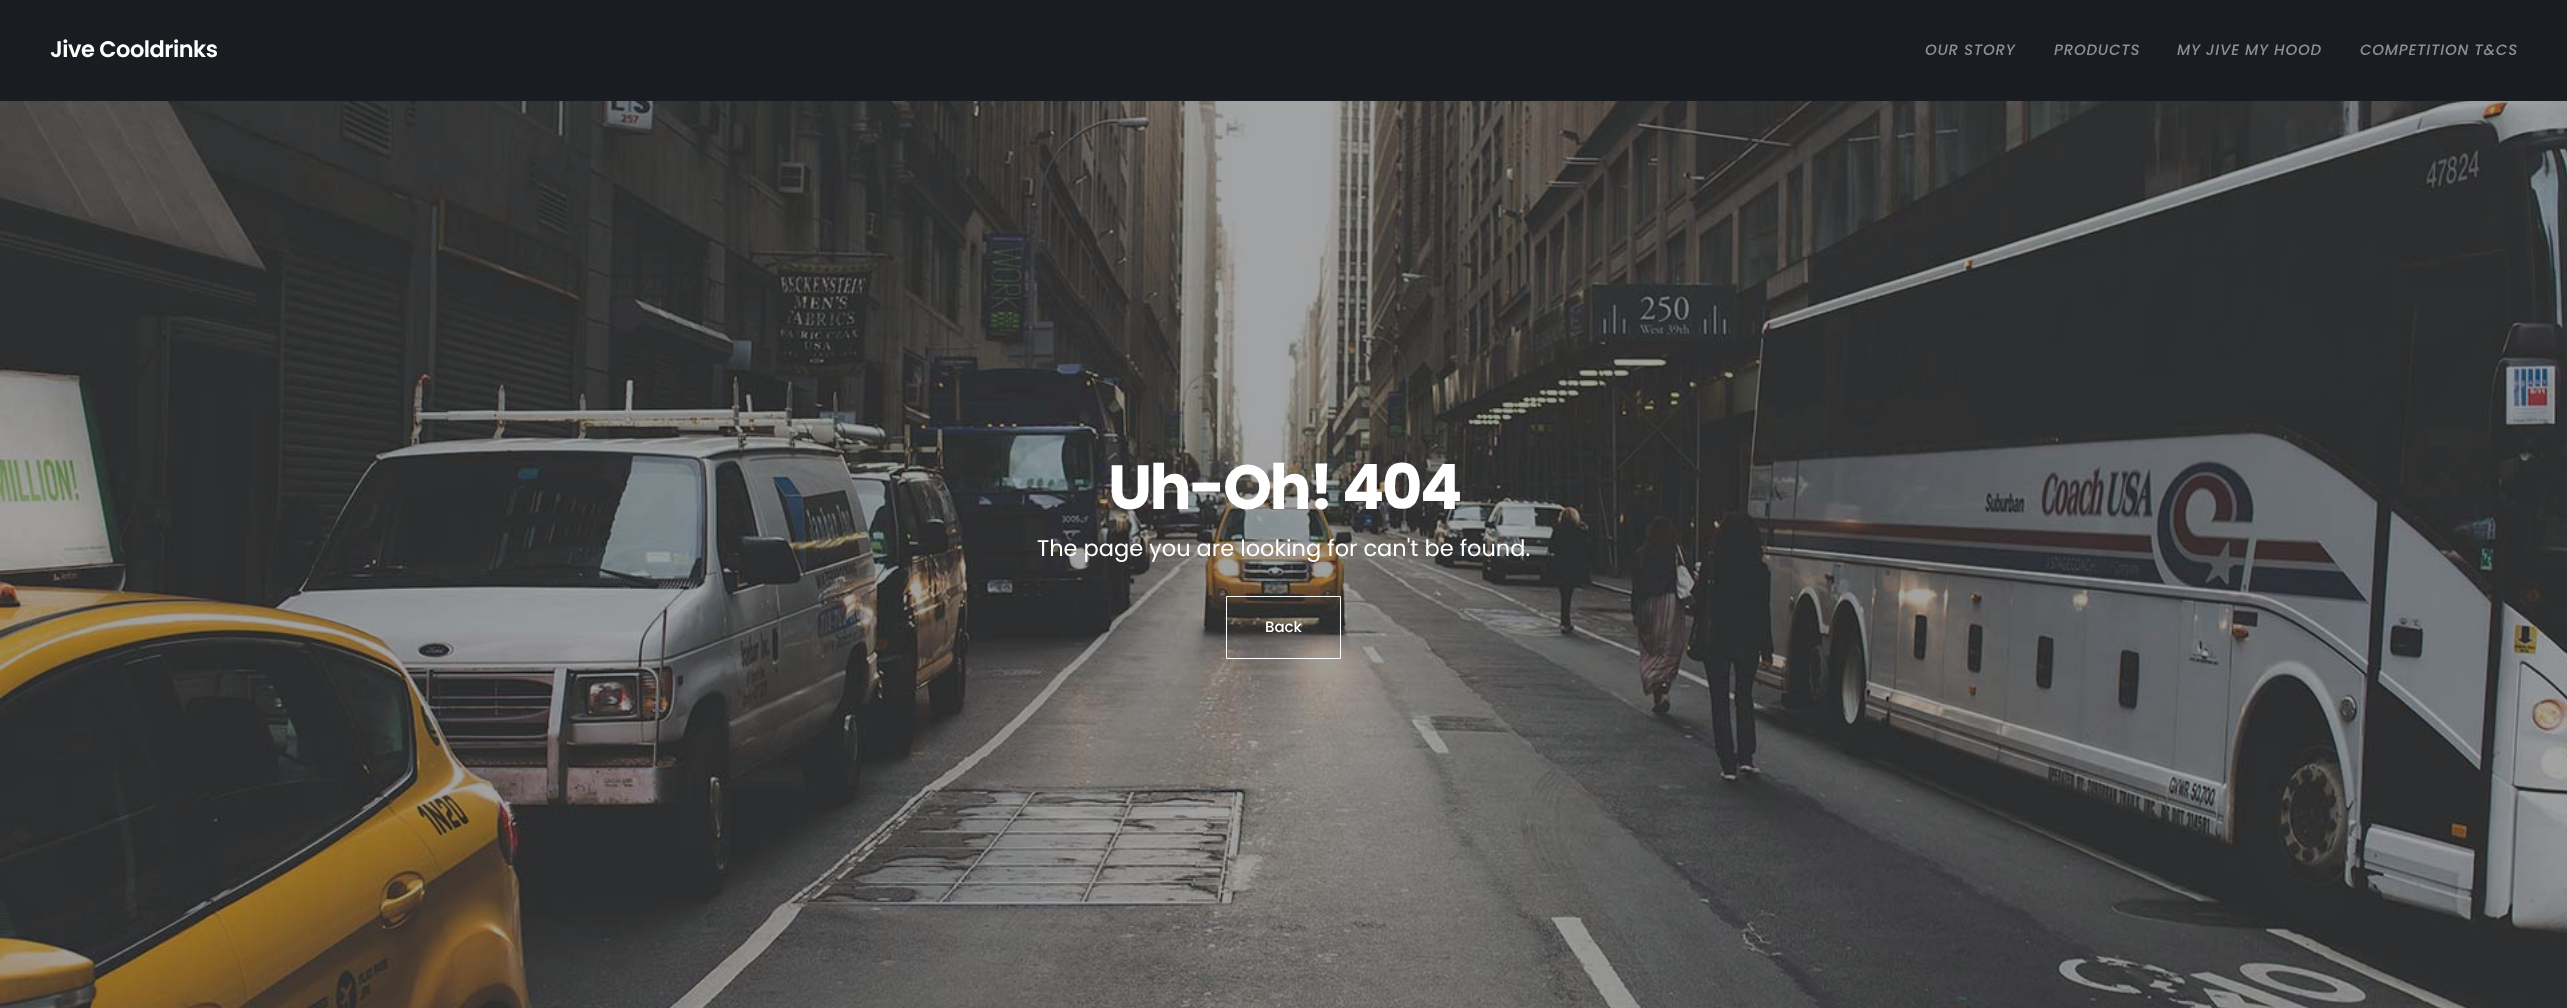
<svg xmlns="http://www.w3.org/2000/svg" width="2567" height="1008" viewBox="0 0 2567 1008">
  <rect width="100%" height="100%" fill="#fff"/>
  <path d="M0 0h2567v101H0z" fill="#191c20"/>
  <image x="0" y="101" width="2567" height="907" href="img/1.png"/>
  <path d="M1226.5 596.5h114v62H1226.5z" fill="none" stroke="#fff"/>
  <text x="50" y="57" font-family="Poppins" font-size="22.5" font-weight="600" letter-spacing="-0.5" fill="#fff">Jive Cooldrinks</text>
  <g font-family="Poppins" font-size="15" font-weight="500" font-style="italic" letter-spacing="0.75" fill="#8c8e90">
    <text x="1925" y="55">OUR STORY</text>
    <text x="2054" y="55">PRODUCTS</text>
    <text x="2177" y="55">MY JIVE MY HOOD</text>
    <text x="2360" y="55">COMPETITION T&amp;CS</text>
  </g>
  <text x="1108" y="509" font-family="Poppins" font-size="62.5" font-weight="bold" letter-spacing="-2.5" fill="#fff">Uh-Oh! 404</text>
  <text x="1037" y="556" font-family="Poppins" font-size="22.5" fill="#fff">The page you are looking for can't be found.</text>
  <text x="1265" y="632" font-family="Poppins" font-size="15" font-weight="500" fill="#fff">Back</text>
</svg>
